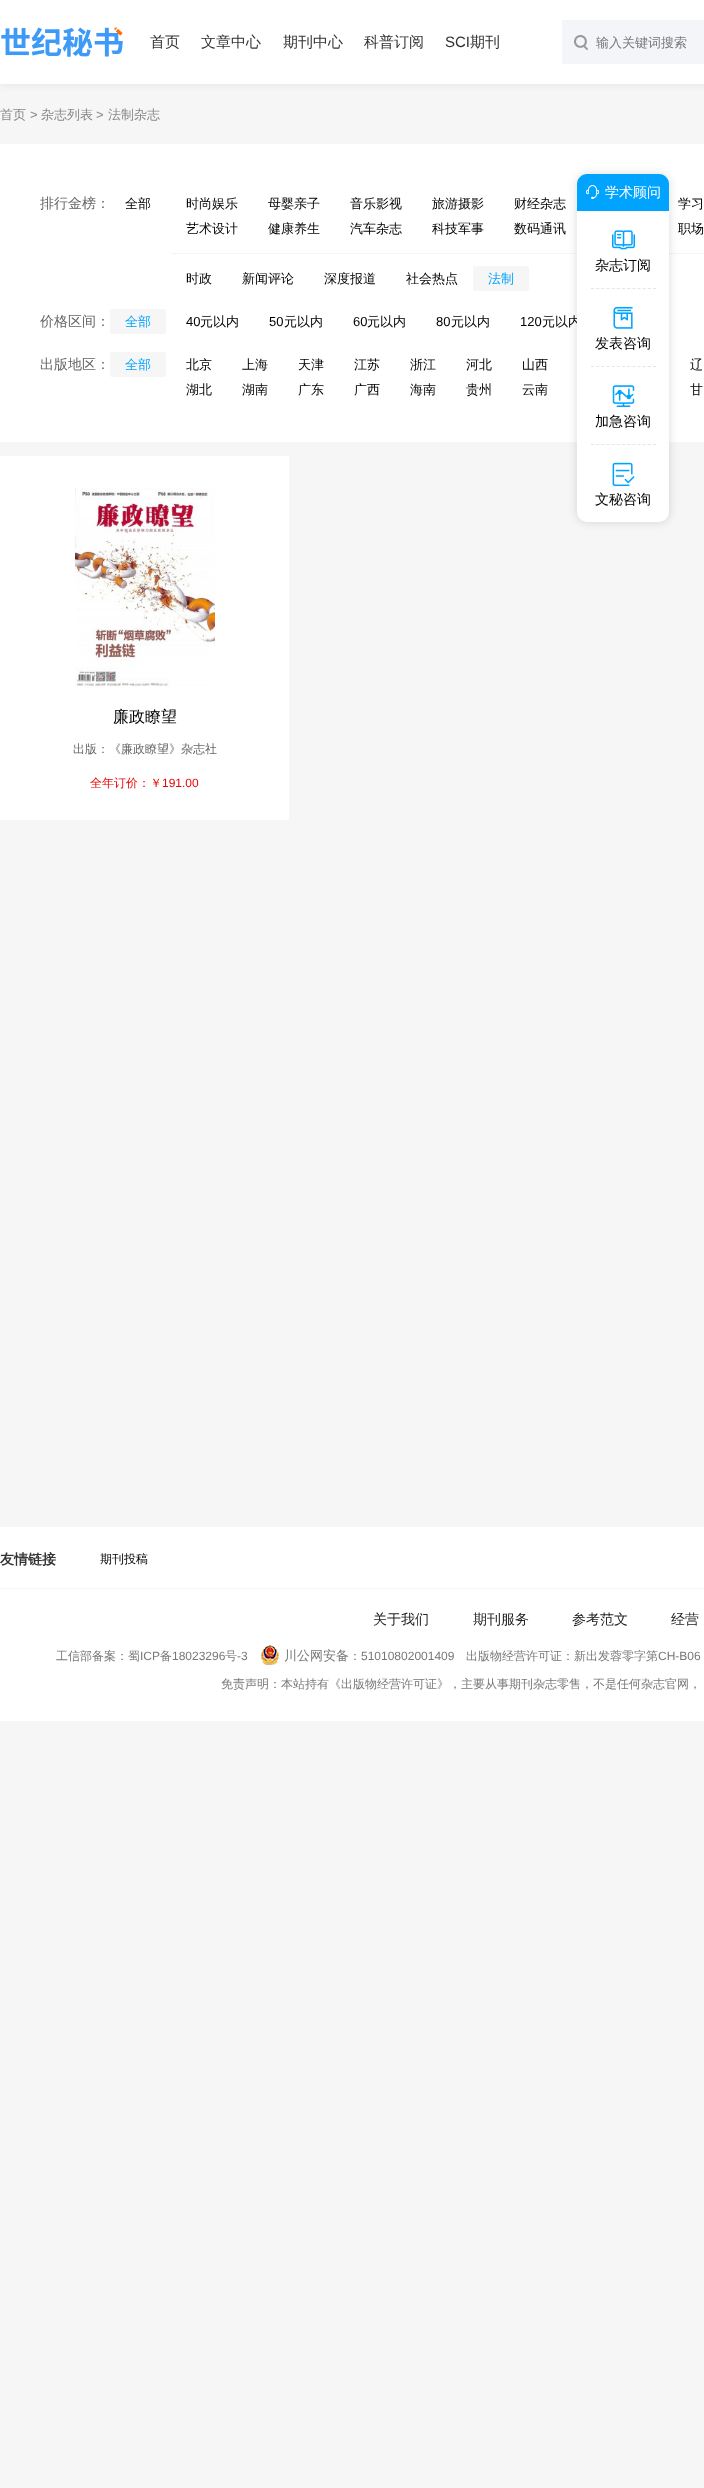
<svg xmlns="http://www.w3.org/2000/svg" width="704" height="2488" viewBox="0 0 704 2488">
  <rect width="100%" height="100%" fill="#f6f6f6"/>
  <path d="M0 0h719v84H0z" fill="#b9b9b952" filter="blur(5px)"/>
  <path d="M0 0h704v84H0z" fill="#fff"/>
  <image x="1" y="27" width="122" height="30" href="img/1.png"/>
  <path d="M562 20h142v44H562z" fill="#f3f5f9"/>
  <image x="574" y="35" width="14" height="15" href="img/2.png"/>
  <path d="M0 144h704v298H0z" fill="#fff"/>
  <path d="M171 253.5H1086" fill="none" stroke="#ececec" stroke-dasharray="1 1"/>
  <rect x="577" y="174" width="92" height="348" rx="10" fill="#00000024" filter="blur(5px)"/>
  <rect x="473" y="266" width="56" height="25" rx="2" fill="#f6f6f6"/>
  <rect x="110" y="309" width="56" height="25" rx="2" fill="#f6f6f6"/>
  <rect x="110" y="352" width="56" height="25" rx="2" fill="#f6f6f6"/>
  <path d="M0 456h289v364H0z" fill="#fff"/>
  <image x="75" y="488" width="140" height="199" href="img/8.png"/>
  <path d="M0 1527h704v61H0z" fill="#fff"/>
  <path d="M0 1589h704v132H0z" fill="#fff"/>
  <image x="261" y="1645" width="18" height="20" href="img/9.png"/>
  <g font-family="WenQuanYi Zen Hei" font-size="15" font-weight="500" fill="#333">
    <text x="150" y="47">首页</text>
    <text x="201" y="47">文章中心</text>
    <text x="283" y="47">期刊中心</text>
    <text x="364" y="47">科普订阅</text>
  </g>
  <text x="445" y="47" font-family="Liberation Sans" font-size="15" fill="#333">SCI</text>
  <text x="470" y="47" font-family="WenQuanYi Zen Hei" font-size="15" font-weight="500" fill="#333">期刊</text>
  <text x="596" y="47" font-family="WenQuanYi Zen Hei" font-size="13" font-weight="500" fill="#777">输入关键词搜索</text>
  <text x="0" y="119" font-family="WenQuanYi Zen Hei" font-size="13" font-weight="500" fill="#888">首页</text>
  <text x="30" y="119" font-family="Liberation Sans" font-size="13" fill="#888">&gt;</text>
  <text x="41" y="119" font-family="WenQuanYi Zen Hei" font-size="13" font-weight="500" fill="#888">杂志列表</text>
  <text x="96" y="119" font-family="Liberation Sans" font-size="13" fill="#888">&gt;</text>
  <text x="108" y="119" font-family="WenQuanYi Zen Hei" font-size="13" font-weight="500" fill="#888">法制杂志</text>
  <text x="40" y="208" font-family="WenQuanYi Zen Hei" font-size="14" font-weight="500" fill="#666">排行金榜：</text>
  <g font-family="WenQuanYi Zen Hei" font-size="13" font-weight="500" fill="#000">
    <text x="125" y="208">全部</text>
    <text x="186" y="208">时尚娱乐</text>
    <text x="268" y="208">母婴亲子</text>
    <text x="350" y="208">音乐影视</text>
    <text x="432" y="208">旅游摄影</text>
    <text x="514" y="208">财经杂志</text>
    <text x="678" y="208">学习</text>
    <text x="186" y="233">艺术设计</text>
    <text x="268" y="233">健康养生</text>
    <text x="350" y="233">汽车杂志</text>
    <text x="432" y="233">科技军事</text>
    <text x="514" y="233">数码通讯</text>
    <text x="678" y="233">职场</text>
    <text x="186" y="283">时政</text>
    <text x="242" y="283">新闻评论</text>
    <text x="324" y="283">深度报道</text>
    <text x="406" y="283">社会热点</text>
  </g>
  <text x="488" y="283" font-family="WenQuanYi Zen Hei" font-size="13" font-weight="500" fill="#00a4ff">法制</text>
  <text x="40" y="326" font-family="WenQuanYi Zen Hei" font-size="14" font-weight="500" fill="#666">价格区间：</text>
  <text x="125" y="326" font-family="WenQuanYi Zen Hei" font-size="13" font-weight="500" fill="#00a4ff">全部</text>
  <text x="186" y="326" font-family="Liberation Sans" font-size="13" fill="#000">40</text>
  <text x="200" y="326" font-family="WenQuanYi Zen Hei" font-size="13" font-weight="500" fill="#000">元以内</text>
  <text x="269" y="326" font-family="Liberation Sans" font-size="13" fill="#000">50</text>
  <text x="284" y="326" font-family="WenQuanYi Zen Hei" font-size="13" font-weight="500" fill="#000">元以内</text>
  <text x="353" y="326" font-family="Liberation Sans" font-size="13" fill="#000">60</text>
  <text x="367" y="326" font-family="WenQuanYi Zen Hei" font-size="13" font-weight="500" fill="#000">元以内</text>
  <text x="436" y="326" font-family="Liberation Sans" font-size="13" fill="#000">80</text>
  <text x="451" y="326" font-family="WenQuanYi Zen Hei" font-size="13" font-weight="500" fill="#000">元以内</text>
  <text x="520" y="326" font-family="Liberation Sans" font-size="13" fill="#000">120</text>
  <text x="542" y="326" font-family="WenQuanYi Zen Hei" font-size="13" font-weight="500" fill="#000">元以内</text>
  <rect x="577" y="174" width="92" height="348" rx="10" fill="#fff"/>
  <g font-family="WenQuanYi Zen Hei" font-size="14" font-weight="500" fill="#000">
    <text x="595" y="504">文秘咨询</text>
    <text x="595" y="426">加急咨询</text>
    <text x="595" y="348">发表咨询</text>
    <text x="595" y="270">杂志订阅</text>
  </g>
  <path d="M587 174H659C664.5 174 669 178.5 669 184V211H577V184C577 178.5 581.5 174 587 174Z" fill="#00a4ff"/>
  <text x="605" y="197" font-family="WenQuanYi Zen Hei" font-size="14" font-weight="500" fill="#fff">学术顾问</text>
  <image x="586" y="185" width="13" height="14" href="img/3.png"/>
  <image x="612" y="462" width="23" height="25" href="img/7.png"/>
  <image x="612" y="385" width="23" height="22" href="img/6.png"/>
  <path d="M591 444.5H656" fill="none" stroke="#e5e5e5" stroke-dasharray="3 2.17"/>
  <image x="613" y="307" width="20" height="22" href="img/5.png"/>
  <path d="M591 366.5H656" fill="none" stroke="#e5e5e5" stroke-dasharray="3 2.17"/>
  <image x="612" y="230" width="23" height="20" href="img/4.png"/>
  <path d="M591 288.5H656" fill="none" stroke="#e5e5e5" stroke-dasharray="3 2.17"/>
  <text x="40" y="369" font-family="WenQuanYi Zen Hei" font-size="14" font-weight="500" fill="#666">出版地区：</text>
  <text x="125" y="369" font-family="WenQuanYi Zen Hei" font-size="13" font-weight="500" fill="#00a4ff">全部</text>
  <g font-family="WenQuanYi Zen Hei" font-size="13" font-weight="500" fill="#000">
    <text x="186" y="369">北京</text>
    <text x="242" y="369">上海</text>
    <text x="298" y="369">天津</text>
    <text x="354" y="369">江苏</text>
    <text x="410" y="369">浙江</text>
    <text x="466" y="369">河北</text>
    <text x="522" y="369">山西</text>
    <text x="690" y="369">辽</text>
    <text x="186" y="394">湖北</text>
    <text x="242" y="394">湖南</text>
    <text x="298" y="394">广东</text>
    <text x="354" y="394">广西</text>
    <text x="410" y="394">海南</text>
    <text x="466" y="394">贵州</text>
    <text x="522" y="394">云南</text>
    <text x="690" y="394">甘</text>
  </g>
  <text x="113" y="722" font-family="WenQuanYi Zen Hei" font-size="16" font-weight="500" fill="#000">廉政瞭望</text>
  <text x="73" y="753" font-family="WenQuanYi Zen Hei" font-size="12" font-weight="500" fill="#666">出版：《廉政瞭望》杂志社</text>
  <text x="90" y="787" font-family="WenQuanYi Zen Hei" font-size="12" font-weight="500" fill="#eb0000">全年订价：￥</text>
  <text x="162" y="787" font-family="Liberation Sans" font-size="12" fill="#eb0000">191.00</text>
  <text x="0" y="1564" font-family="WenQuanYi Zen Hei" font-size="14" font-weight="bold" fill="#333">友情链接</text>
  <text x="100" y="1563" font-family="WenQuanYi Zen Hei" font-size="12" font-weight="500" fill="#000">期刊投稿</text>
  <g font-family="WenQuanYi Zen Hei" font-size="14" font-weight="500" fill="#222">
    <text x="373" y="1624">关于我们</text>
    <text x="473" y="1624">期刊服务</text>
    <text x="572" y="1624">参考范文</text>
    <text x="671" y="1624">经营</text>
  </g>
  <text x="56" y="1660" font-family="WenQuanYi Zen Hei" font-size="12" font-weight="500" fill="#777">工信部备案：蜀</text>
  <text x="140" y="1660" font-family="Liberation Sans" font-size="12" fill="#777">ICP</text>
  <text x="160" y="1660" font-family="WenQuanYi Zen Hei" font-size="12" font-weight="500" fill="#777">备</text>
  <text x="172" y="1660" font-family="Liberation Sans" font-size="12" fill="#777">18023296</text>
  <text x="225" y="1660" font-family="WenQuanYi Zen Hei" font-size="12" font-weight="500" fill="#777">号</text>
  <text x="237" y="1660" font-family="Liberation Sans" font-size="12" fill="#777">-3</text>
  <text x="284" y="1660" font-family="WenQuanYi Zen Hei" font-size="13" font-weight="500" fill="#777">川公网安备</text>
  <text x="349" y="1660" font-family="WenQuanYi Zen Hei" font-size="12" font-weight="500" fill="#777">：</text>
  <text x="361" y="1660" font-family="Liberation Sans" font-size="12" fill="#777">51010802001409</text>
  <text x="466" y="1660" font-family="WenQuanYi Zen Hei" font-size="12" font-weight="500" fill="#777">出版物经营许可证：新出发蓉零字第</text>
  <text x="658" y="1660" font-family="Liberation Sans" font-size="12" fill="#777">CH-B06</text>
  <text x="221" y="1688" font-family="WenQuanYi Zen Hei" font-size="12" font-weight="500" fill="#777">免责声明：本站持有《出版物经营许可证》，主要从事期刊杂志零售，不是任何杂志官网，</text>
</svg>
